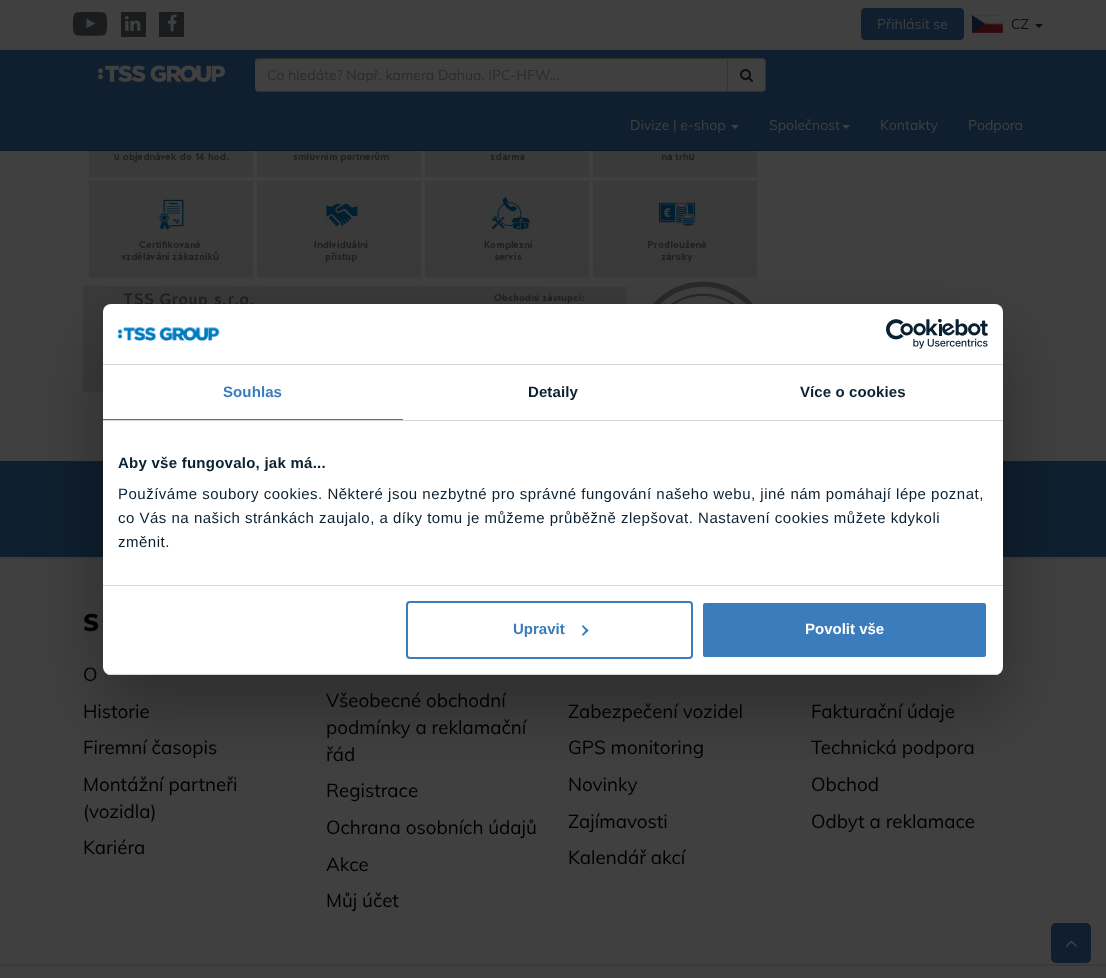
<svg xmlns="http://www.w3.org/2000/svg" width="1106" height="978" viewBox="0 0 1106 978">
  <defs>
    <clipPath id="clip1"><rect x="103" y="304" width="900" height="371" rx="8"/></clipPath>
  </defs>
  <rect width="100%" height="100%" fill="#404040"/>
  <path d="M0 50h1106v100H0z" fill="#0f1f2f"/>
  <path d="M0 150h1106v1H0z" fill="#0c1925"/>
  <image x="73" y="11" width="34" height="25" href="img/1.png"/>
  <path d="M121 12h25v25H121z" fill="#191b1d"/>
  <image x="125" y="16" width="16" height="15" href="img/2.png"/>
  <path d="M159 12h25v25H159z" fill="#191b1d"/>
  <image x="167" y="14" width="10" height="18" href="img/3.png"/>
  <rect x="861.5" y="8.5" width="102" height="31" rx="3.5" fill="#0f1f2f" stroke="#0f1f2f"/>
  <image x="972" y="15" width="31" height="18" href="img/4.png"/>
  <path d="M1035 24H1043L1039 28Z" fill="#0d0f10"/>
  <image x="98" y="65" width="127" height="17" href="img/5.png"/>
  <path d="M259 58H728V92H259C257 92 255 90 255 88V62C255 60 257 58 259 58Z" fill="#404040"/>
  <path d="M259 60H727V59H259C257 59 255 60 255 62V63C255 61 257 60 259 60Z" fill="#3b3b3b"/>
  <path d="M257 58h471v1H257z" fill="#2f2f2f"/>
  <path d="M257 91h471v1H257z" fill="#2f2f2f"/>
  <path d="M727.5 58.5H762C764 58.5 765.5 60 765.5 62V88C765.5 90 764 91.5 762 91.5H727.5Z" fill="#404040" stroke="#333"/>
  <image x="740" y="69" width="13" height="13" href="img/6.png"/>
  <path d="M731 125H739L735 129Z" fill="#404040"/>
  <path d="M842 125H850L846 129Z" fill="#404040"/>
  <image x="83" y="151" width="680" height="246" href="img/7.png"/>
  <path d="M0 461h1106v96H0z" fill="#0f1f2f"/>
  <path d="M0 557h1106v2H0z" fill="#3c3c3c"/>
  <rect x="103" y="336" width="900" height="371" rx="8" fill="#0000004d" filter="blur(34px)"/>
  <rect x="103" y="304" width="900" height="371" rx="8" fill="#fff"/>
  <path d="M103 364h900v1H103z" fill="#d6d6d6"/>
  <image x="118" y="326" width="102" height="15" href="img/8.png"/>
  <image x="886" y="319" width="102" height="30" href="img/9.png"/>
  <path d="M103 420h900v1H103z" fill="#d6d6d6"/>
  <path d="M103 419h300v1H103z" fill="#3a7cbc"/>
  <path d="M103 585h900v1H103z" fill="#d6d6d6"/>
  <g clip-path="url(#clip1)">
    <path d="M103 674h900v1H103z" fill="#d6d6d6"/>
  </g>
  <rect x="407" y="602" width="285" height="56" rx="3" fill="none" stroke="#3a7cbc" stroke-width="2"/>
  <path d="M583 625L588.5 630.5L587 632L582 626.5Z" fill="#3a7cbc"/>
  <path d="M587 629L588.5 630.5L583 636L582 634.5Z" fill="#3a7cbc"/>
  <rect x="702" y="602" width="285" height="56" rx="3" fill="#3a7cbc" stroke="#fff" stroke-width="2"/>
  <path d="M0 964h1106v2H0z" fill="#393a3a"/>
  <rect x="1051" y="923" width="40" height="40" rx="5" fill="#0f1f2f"/>
  <image x="1065" y="940" width="12" height="7" href="img/10.png"/>
  <text x="877" y="29" font-family="Muli" font-size="14" fill="#404040">Přihlásit se</text>
  <text x="1011" y="29" font-family="Muli" font-size="14" fill="#0d0f10">CZ</text>
  <text x="267" y="80" font-family="Muli" font-size="14" fill="#2b2b2b">Co hledáte? Např. kamera Dahua, IPC-HFW…</text>
  <g font-family="Muli" font-size="14" fill="#404040">
    <text x="630" y="130">Divize | e-shop</text>
    <text x="769" y="130">Společnost</text>
    <text x="880" y="130">Kontakty</text>
    <text x="968" y="130">Podpora</text>
  </g>
  <text x="223" y="397" font-family="Liberation Sans" font-size="15" font-weight="bold" letter-spacing="0.1" fill="#3a7cbc">Souhlas</text>
  <g font-family="Liberation Sans" font-size="15" font-weight="bold" letter-spacing="0.1" fill="#0a2131">
    <text x="528" y="397">Detaily</text>
    <text x="800" y="397">Více o cookies</text>
  </g>
  <text x="118" y="468" font-family="Liberation Sans" font-size="15" font-weight="bold" letter-spacing="0.25" fill="#0a2131">Aby vše fungovalo, jak má...</text>
  <g font-family="Liberation Sans" font-size="15" letter-spacing="0.5" fill="#0a2131">
    <text x="118" y="499">Používáme soubory cookies. Některé jsou nezbytné pro správné fungování našeho webu, jiné nám pomáhají lépe poznat,</text>
    <text x="118" y="523">co Vás na našich stránkách zaujalo, a díky tomu je můžeme průběžně zlepšovat. Nastavení cookies můžete kdykoli</text>
    <text x="118" y="547">změnit.</text>
  </g>
  <text x="513" y="634" font-family="Liberation Sans" font-size="15" font-weight="bold" fill="#3a7cbc">Upravit</text>
  <text x="805" y="634" font-family="Liberation Sans" font-size="15" font-weight="bold" fill="#fff">Povolit vše</text>
  <text x="83" y="631" font-family="Muli" font-size="24" font-weight="900" fill="#000">S</text>
  <g font-family="Muli" font-size="18.75" fill="#000">
    <text x="83" y="681">O</text>
    <text x="83" y="718">Historie</text>
    <text x="83" y="754">Firemní časopis</text>
    <text x="83" y="791">Montážní partneři</text>
    <text x="83" y="818">(vozidla)</text>
    <text x="83" y="854">Kariéra</text>
    <text x="326" y="707">Všeobecné obchodní</text>
    <text x="326" y="734">podmínky a reklamační</text>
    <text x="326" y="761">řád</text>
    <text x="326" y="797">Registrace</text>
    <text x="326" y="834">Ochrana osobních údajů</text>
    <text x="326" y="871">Akce</text>
    <text x="326" y="907">Můj účet</text>
    <text x="568" y="718">Zabezpečení vozidel</text>
    <text x="568" y="754">GPS monitoring</text>
    <text x="568" y="791">Novinky</text>
    <text x="568" y="828">Zajímavosti</text>
    <text x="568" y="864">Kalendář akcí</text>
    <text x="811" y="718">Fakturační údaje</text>
    <text x="811" y="754">Technická podpora</text>
    <text x="811" y="791">Obchod</text>
    <text x="811" y="828">Odbyt a reklamace</text>
  </g>
</svg>
